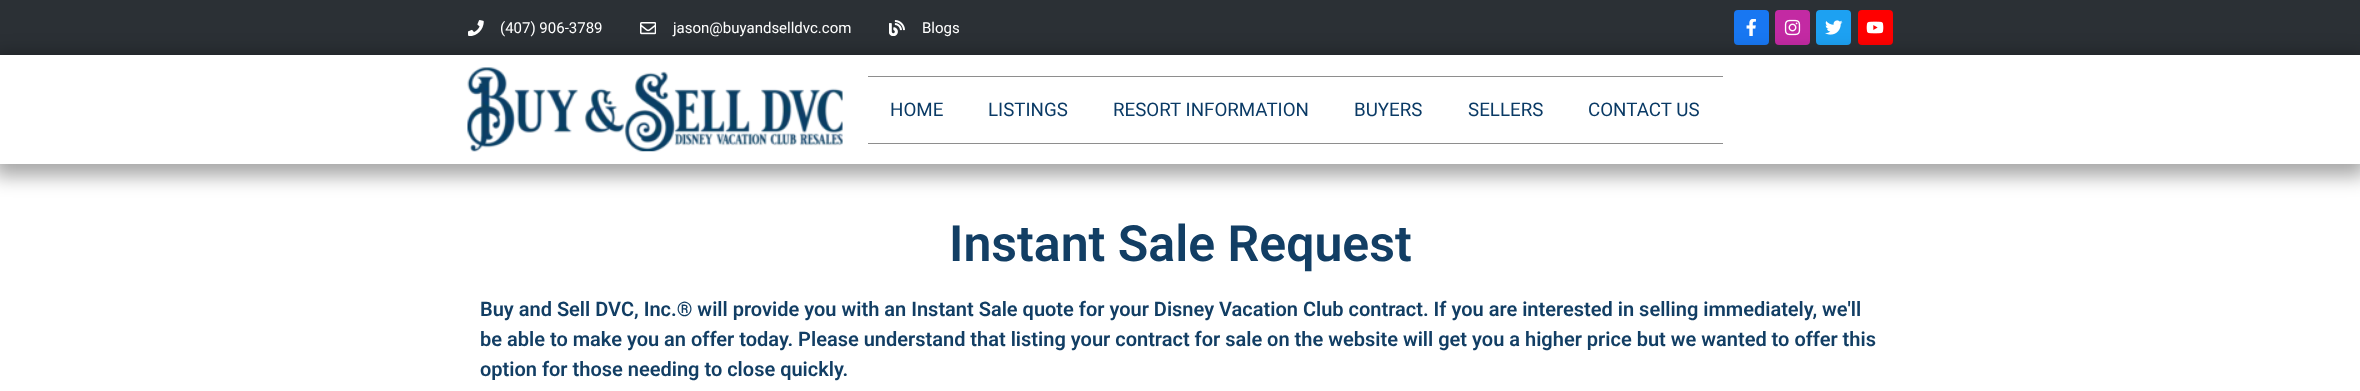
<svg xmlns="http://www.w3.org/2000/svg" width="2360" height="391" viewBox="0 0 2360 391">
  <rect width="100%" height="100%" fill="#fff"/>
  <path d="M0 0h2360v55H0z" fill="#2b3035"/>
  <image x="468" y="20" width="16" height="16" href="img/1.png"/>
  <image x="640" y="22" width="16" height="13" href="img/2.png"/>
  <image x="889" y="20" width="16" height="16" href="img/3.png"/>
  <rect x="1734" y="10" width="35" height="35" rx="4" fill="#1877f2"/>
  <image x="1746" y="19" width="10" height="17" href="img/4.png"/>
  <rect x="1775" y="10" width="35" height="35" rx="4" fill="#c32aa3"/>
  <image x="1784" y="19" width="17" height="17" href="img/5.png"/>
  <rect x="1816" y="10" width="35" height="35" rx="4" fill="#1da1f2"/>
  <image x="1825" y="20" width="18" height="15" href="img/6.png"/>
  <rect x="1858" y="10" width="35" height="35" rx="4" fill="#f00"/>
  <image x="1866" y="21" width="18" height="13" href="img/7.png"/>
  <path d="M-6 55h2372v121H-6z" fill="#00000059" filter="blur(9.5px)"/>
  <path d="M0 55h2360v109H0z" fill="#fff"/>
  <image x="467" y="67" width="376" height="85" href="img/8.png"/>
  <path d="M868 76h855v1H868z" fill="#8e8e8e"/>
  <path d="M868 143h855v1H868z" fill="#8e8e8e"/>
  <g font-family="Roboto" font-size="15" fill="#fff">
    <text x="500" y="33">(407) 906-3789</text>
    <text x="673" y="33">jason@buyandselldvc.com</text>
    <text x="922" y="33">Blogs</text>
  </g>
  <g font-family="Roboto" font-size="18.75" fill="#0a3a65">
    <text x="890" y="116">HOME</text>
    <text x="988" y="116">LISTINGS</text>
    <text x="1113" y="116">RESORT INFORMATION</text>
    <text x="1354" y="116">BUYERS</text>
    <text x="1468" y="116">SELLERS</text>
    <text x="1588" y="116">CONTACT US</text>
  </g>
  <text x="949" y="261" font-family="Roboto" font-size="50" font-weight="600" fill="#123e64">Instant Sale Request</text>
  <g font-family="Roboto" font-size="20" font-weight="600" fill="#123e64">
    <text x="480" y="316">Buy and Sell DVC, Inc.® will provide you with an Instant Sale quote for your Disney Vacation Club contract. If you are interested in selling immediately, we'll</text>
    <text x="480" y="346">be able to make you an offer today. Please understand that listing your contract for sale on the website will get you a higher price but we wanted to offer this</text>
    <text x="480" y="376">option for those needing to close quickly.</text>
  </g>
</svg>
